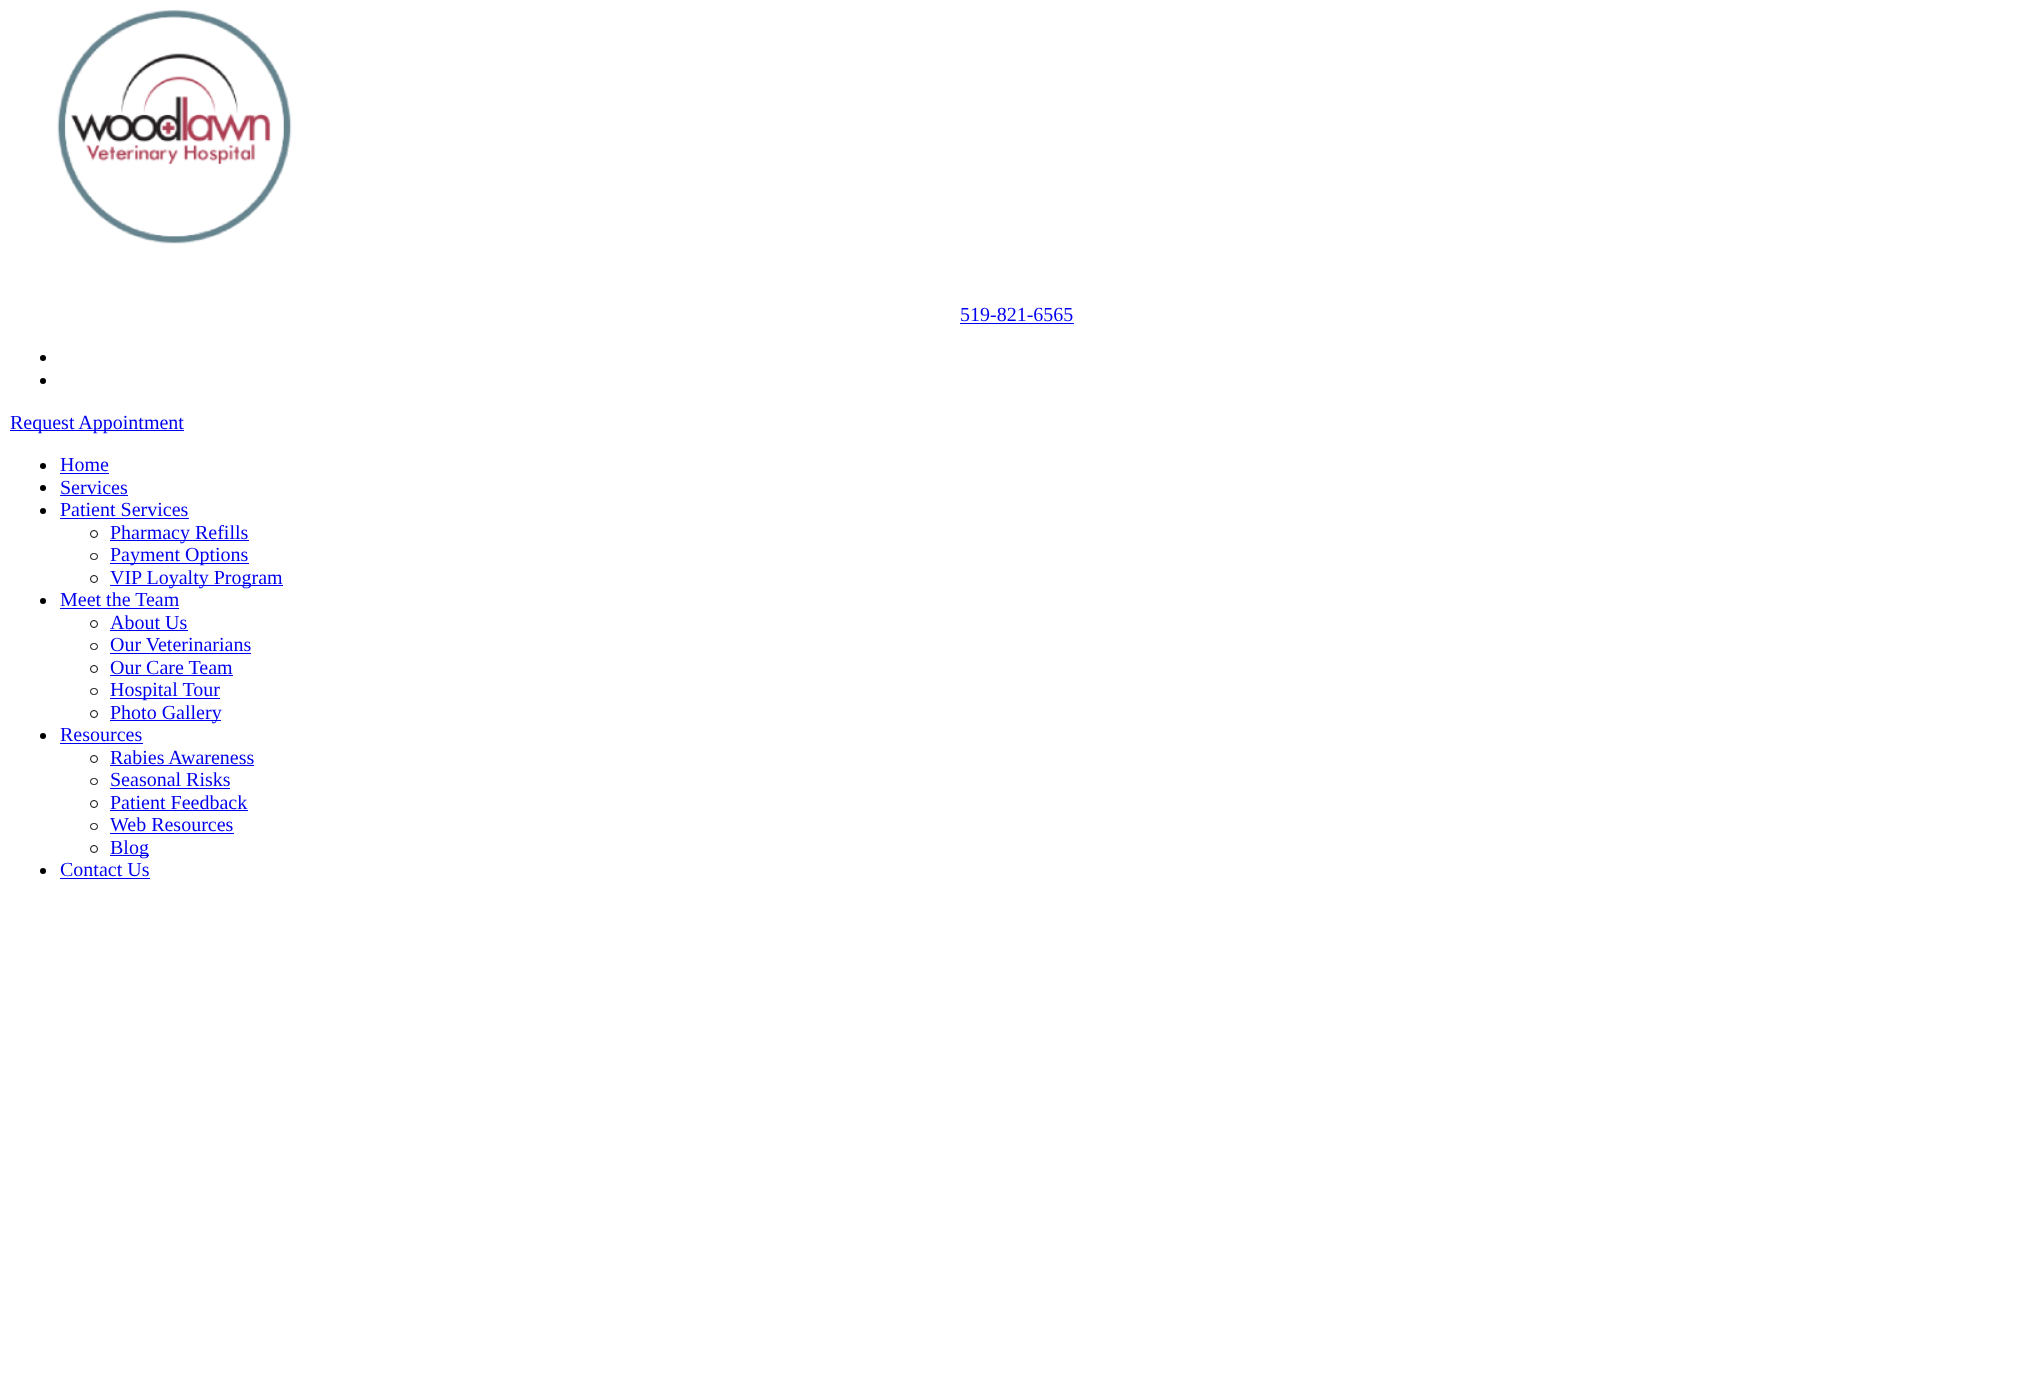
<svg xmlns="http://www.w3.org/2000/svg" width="2033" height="1396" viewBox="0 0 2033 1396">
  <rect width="100%" height="100%" fill="#fff"/>
  <image x="57" y="10" width="235" height="234" href="img/1.png"/>
  <path d="M960 323h114v1H960z" fill="#00e"/>
  <circle cx="43" cy="358" r="3" fill="#000"/>
  <circle cx="43" cy="381" r="3" fill="#000"/>
  <path d="M10 430h174v1H10z" fill="#00e"/>
  <circle cx="43" cy="466" r="3" fill="#000"/>
  <path d="M60 473h49v1H60z" fill="#00e"/>
  <circle cx="43" cy="488" r="3" fill="#000"/>
  <path d="M60 495h68v1H60z" fill="#00e"/>
  <circle cx="43" cy="511" r="3" fill="#000"/>
  <path d="M60 518h129v1H60z" fill="#00e"/>
  <circle cx="94" cy="534" r="3.5" fill="none" stroke="#000"/>
  <path d="M110 540h139v1H110z" fill="#00e"/>
  <rect x="90.5" y="553.5" width="7" height="6" rx="3" fill="none" stroke="#000"/>
  <path d="M110 563h139v1H110z" fill="#00e"/>
  <circle cx="94" cy="579" r="3.5" fill="none" stroke="#000"/>
  <path d="M110 585h173v1H110z" fill="#00e"/>
  <circle cx="43" cy="601" r="3" fill="#000"/>
  <path d="M60 608h119v1H60z" fill="#00e"/>
  <circle cx="94" cy="624" r="3.5" fill="none" stroke="#000"/>
  <path d="M110 630h78v1H110z" fill="#00e"/>
  <rect x="90.5" y="643.5" width="7" height="6" rx="3" fill="none" stroke="#000"/>
  <path d="M110 653h141v1H110z" fill="#00e"/>
  <circle cx="94" cy="669" r="3.5" fill="none" stroke="#000"/>
  <path d="M110 675h123v1H110z" fill="#00e"/>
  <rect x="90.5" y="688.5" width="7" height="6" rx="3" fill="none" stroke="#000"/>
  <path d="M110 698h110v1H110z" fill="#00e"/>
  <circle cx="94" cy="714" r="3.5" fill="none" stroke="#000"/>
  <path d="M110 720h111v1H110z" fill="#00e"/>
  <circle cx="43" cy="736" r="3" fill="#000"/>
  <path d="M60 743h83v1H60z" fill="#00e"/>
  <circle cx="94" cy="759" r="3.5" fill="none" stroke="#000"/>
  <path d="M110 765h144v1H110z" fill="#00e"/>
  <rect x="90.5" y="778.5" width="7" height="6" rx="3" fill="none" stroke="#000"/>
  <path d="M110 788h120v1H110z" fill="#00e"/>
  <circle cx="94" cy="804" r="3.5" fill="none" stroke="#000"/>
  <path d="M110 810h138v1H110z" fill="#00e"/>
  <rect x="90.5" y="823.5" width="7" height="6" rx="3" fill="none" stroke="#000"/>
  <path d="M110 833h124v1H110z" fill="#00e"/>
  <circle cx="94" cy="849" r="3.5" fill="none" stroke="#000"/>
  <path d="M110 855h39v1H110z" fill="#00e"/>
  <circle cx="43" cy="871" r="3" fill="#000"/>
  <path d="M60 878h90v1H60z" fill="#00e"/>
  <g font-family="Liberation Serif" font-size="20" fill="#00e">
    <text x="960" y="321">519-821-6565</text>
    <text x="10" y="429">Request Appointment</text>
    <text x="60" y="471">Home</text>
    <text x="60" y="494">Services</text>
    <text x="60" y="516">Patient Services</text>
    <text x="110" y="539">Pharmacy Refills</text>
    <text x="110" y="561">Payment Options</text>
    <text x="110" y="584">VIP Loyalty Program</text>
    <text x="60" y="606">Meet the Team</text>
    <text x="110" y="629">About Us</text>
    <text x="110" y="651">Our Veterinarians</text>
    <text x="110" y="674">Our Care Team</text>
    <text x="110" y="696">Hospital Tour</text>
    <text x="110" y="719">Photo Gallery</text>
    <text x="60" y="741">Resources</text>
    <text x="110" y="764">Rabies Awareness</text>
    <text x="110" y="786">Seasonal Risks</text>
    <text x="110" y="809">Patient Feedback</text>
    <text x="110" y="831">Web Resources</text>
    <text x="110" y="854">Blog</text>
    <text x="60" y="876">Contact Us</text>
  </g>
</svg>
